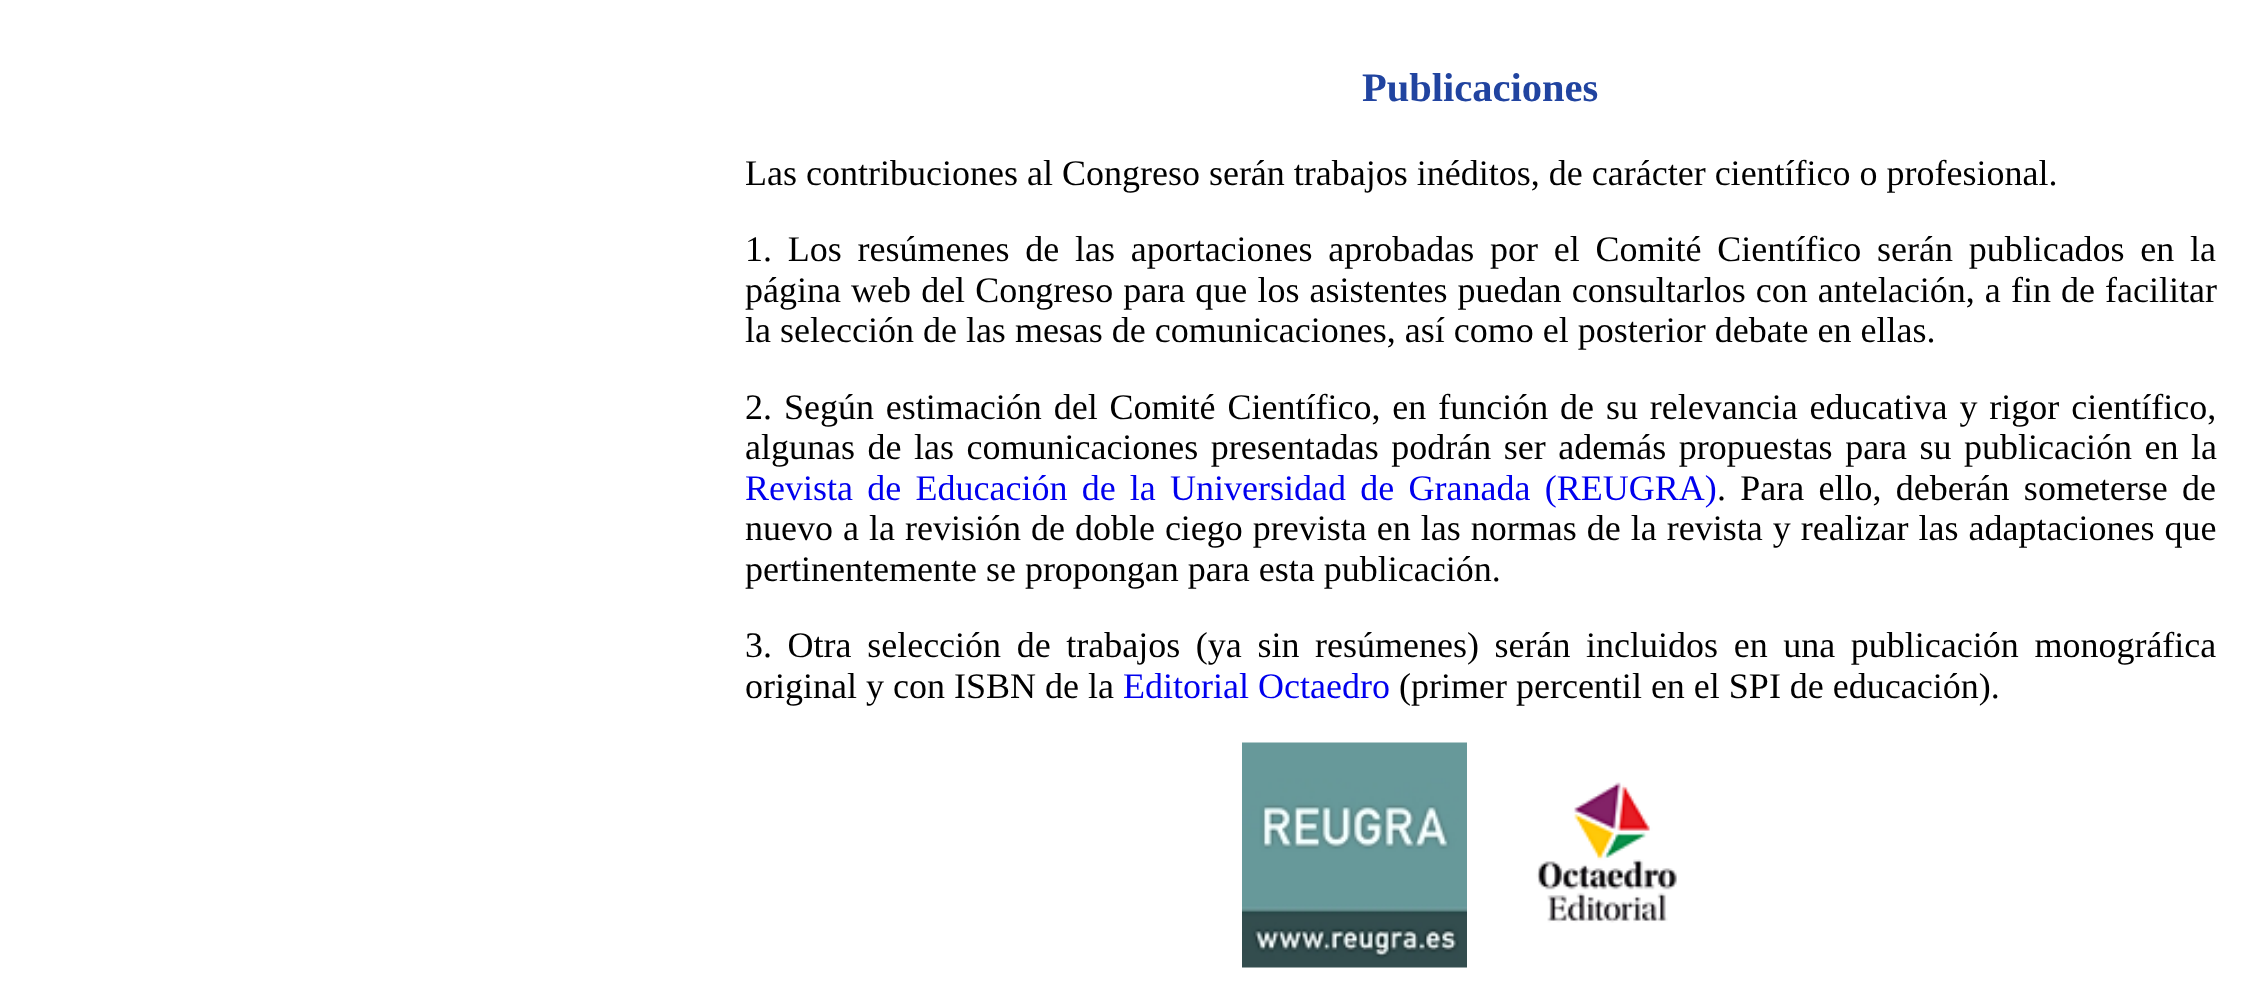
<svg xmlns="http://www.w3.org/2000/svg" width="2241" height="981" viewBox="0 0 2241 981">
  <rect width="100%" height="100%" fill="#fff"/>
  <image x="1242" y="742" width="225" height="226" href="img/1.png"/>
  <image x="1536" y="782" width="141" height="141" href="img/2.png"/>
  <text x="1362" y="101" font-family="Liberation Serif" font-size="40.5" font-weight="bold" fill="#2144a0">Publicaciones</text>
  <g font-family="Liberation Serif" font-size="36" fill="#000">
    <text x="745" y="185">Las contribuciones al Congreso serán trabajos inéditos, de carácter científico o profesional.</text>
    <text x="745" y="261" word-spacing="6.75">1. Los resúmenes de las aportaciones aprobadas por el Comité Científico serán publicados en la</text>
    <text x="745" y="302" word-spacing="1.1">página web del Congreso para que los asistentes puedan consultarlos con antelación, a fin de facilitar</text>
    <text x="745" y="342">la selección de las mesas de comunicaciones, así como el posterior debate en ellas.</text>
    <text x="745" y="419" word-spacing="2.9">2. Según estimación del Comité Científico, en función de su relevancia educativa y rigor científico,</text>
    <text x="745" y="459" word-spacing="3.5">algunas de las comunicaciones presentadas podrán ser además propuestas para su publicación en la</text>
  </g>
  <text x="745" y="500" word-spacing="5.25" font-family="Liberation Serif" font-size="36" fill="#00e">Revista de Educación de la Universidad de Granada (REUGRA)</text>
  <g font-family="Liberation Serif" font-size="36" fill="#000">
    <text x="1717" y="500" word-spacing="5.25">. Para ello, deberán someterse de</text>
    <text x="745" y="540" word-spacing="1">nuevo a la revisión de doble ciego prevista en las normas de la revista y realizar las adaptaciones que</text>
    <text x="745" y="581">pertinentemente se propongan para esta publicación.</text>
    <text x="745" y="657" word-spacing="6.6">3. Otra selección de trabajos (ya sin resúmenes) serán incluidos en una publicación monográfica</text>
    <text x="745" y="698">original y con ISBN de la</text>
  </g>
  <text x="1123" y="698" font-family="Liberation Serif" font-size="36" fill="#00e">Editorial Octaedro</text>
  <text x="1399" y="698" font-family="Liberation Serif" font-size="36" fill="#000">(primer percentil en el SPI de educación).</text>
</svg>
